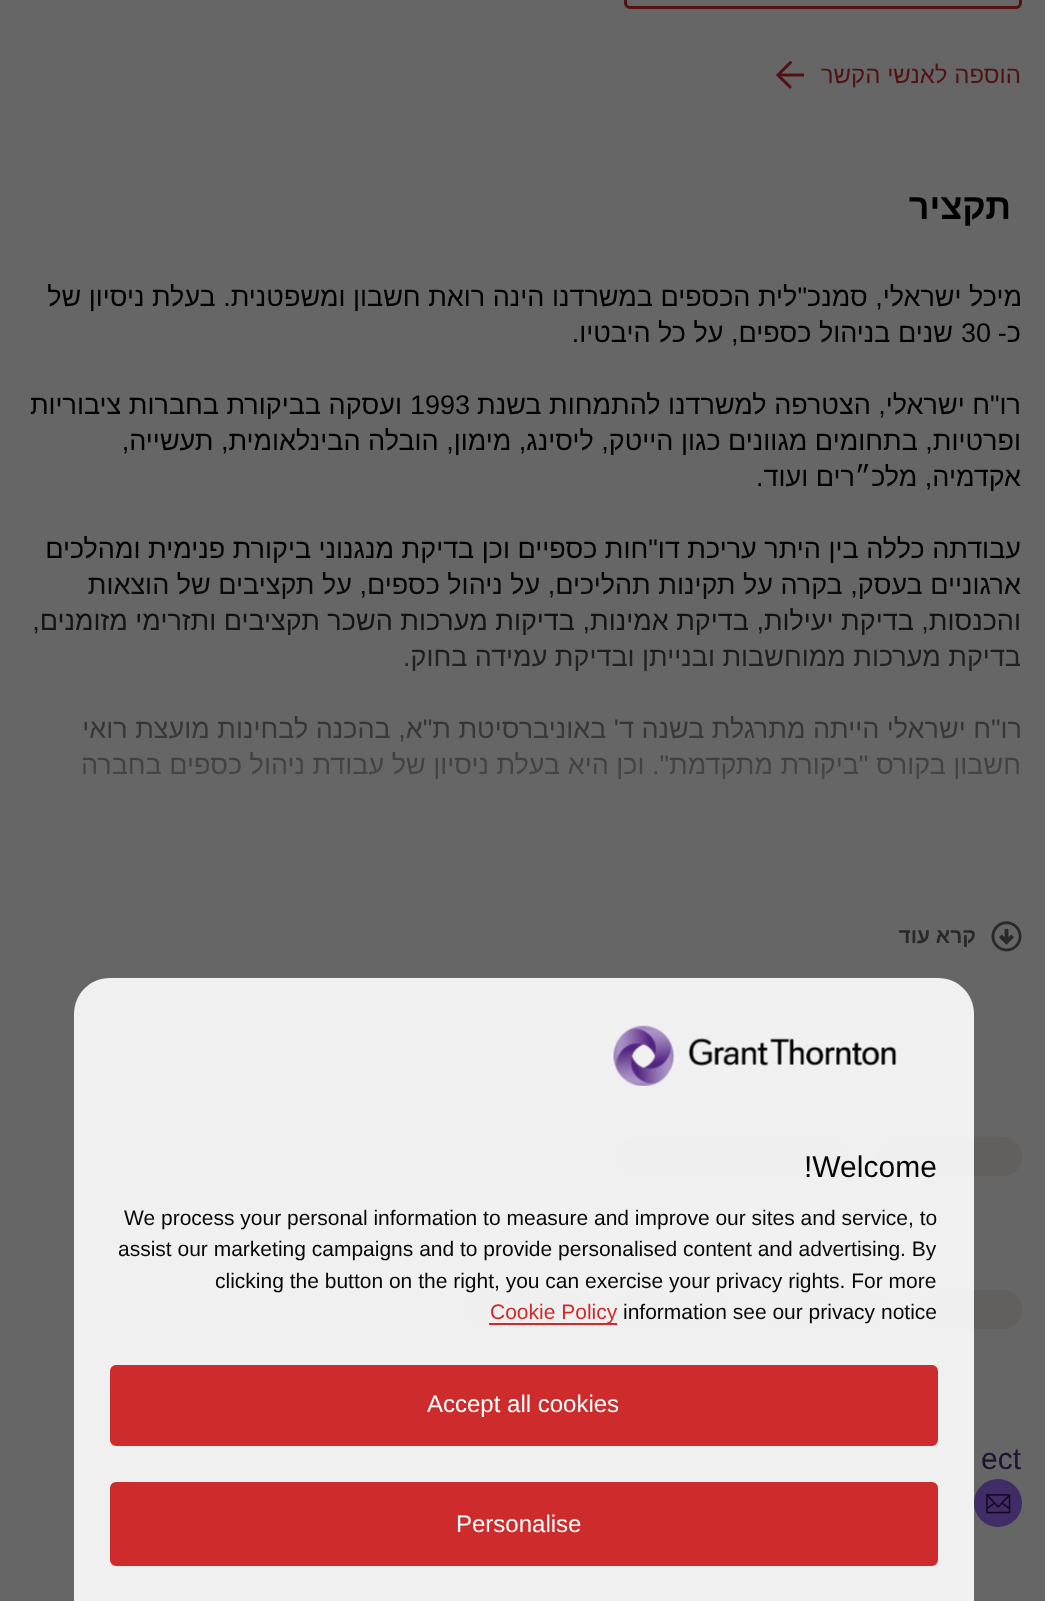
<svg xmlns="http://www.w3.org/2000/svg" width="1045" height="1601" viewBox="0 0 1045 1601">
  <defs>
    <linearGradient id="g1" gradientUnits="userSpaceOnUse" x1="523" y1="562" x2="523" y2="873"><stop offset="0" stop-color="#666" stop-opacity="0"/><stop offset="1" stop-color="#666"/></linearGradient>
  </defs>
  <rect width="100%" height="100%" fill="#666"/>
  <rect x="625.5" y="-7.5" width="395" height="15" rx="4.5" fill="none" stroke="#521212" stroke-width="3"/>
  <path d="M778 75H804" fill="none" stroke="#521212" stroke-width="3"/>
  <path d="M790.5 62.5L778 75L790 87" fill="none" stroke="#521212" stroke-width="3" stroke-linecap="round"/>
  <image x="991" y="921" width="31" height="31" href="img/1.png"/>
  <rect x="878" y="1137" width="144" height="39" rx="19.5" fill="#61605f"/>
  <rect x="617" y="1137" width="231" height="39" rx="19.5" fill="#61605f"/>
  <rect x="918" y="1290" width="104" height="39" rx="19.5" fill="#61605f"/>
  <rect x="759" y="1290" width="128" height="39" rx="19.5" fill="#61605f"/>
  <rect x="612" y="1290" width="117" height="39" rx="19.5" fill="#61605f"/>
  <rect x="465" y="1290" width="117" height="39" rx="19.5" fill="#61605f"/>
  <circle cx="998" cy="1503" r="24" fill="#402c66"/>
  <image x="986" y="1494" width="25" height="20" href="img/2.png"/>
  <path d="M110 978H938C958 978 974 994 974 1014V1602H74V1014C74 994 90 978 110 978Z" fill="#ffffffe6"/>
  <image x="613" y="1025" width="284" height="61" href="img/3.png"/>
  <path d="M489 1323h128v2H489z" fill="#ce2c2c"/>
  <rect x="111.5" y="1366.5" width="825" height="78" rx="4.5" fill="#ce2c2c" stroke="#ce2c2c" stroke-width="3"/>
  <rect x="111.5" y="1483.5" width="825" height="81" rx="4.5" fill="#ce2c2c" stroke="#ce2c2c" stroke-width="3"/>
  <text x="1021" y="83" font-family="Liberation Sans" font-size="24" direction="rtl" fill="#521212">הוספה לאנשי הקשר</text>
  <text x="1011" y="219" font-family="Liberation Sans" font-size="36" font-weight="bold" direction="rtl" fill="#000">תקציר</text>
  <g font-family="Liberation Sans" font-size="27" direction="rtl" fill="#000">
    <text x="1022" y="306">מיכל ישראלי, סמנכ"לית הכספים במשרדנו הינה רואת חשבון ומשפטנית. בעלת ניסיון של</text>
    <text x="1021" y="342">כ-</text>
  </g>
  <text x="961" y="342" font-family="Liberation Sans" font-size="27" fill="#000">30</text>
  <g font-family="Liberation Sans" font-size="27" direction="rtl" fill="#000">
    <text x="953" y="342">שנים בניהול כספים, על כל היבטיו.</text>
    <text x="1021" y="414">רו"ח ישראלי, הצטרפה למשרדנו להתמחות בשנת</text>
  </g>
  <text x="410" y="414" font-family="Liberation Sans" font-size="27" fill="#000">1993</text>
  <g font-family="Liberation Sans" font-size="27" direction="rtl" fill="#000">
    <text x="402" y="414">ועסקה בביקורת בחברות ציבוריות</text>
    <text x="1021" y="450">ופרטיות, בתחומים מגוונים כגון הייטק, ליסינג, מימון, הובלה הבינלאומית, תעשייה,</text>
    <text x="1021" y="486">אקדמיה, מלכ״רים ועוד.</text>
    <text x="1021" y="558">עבודתה כללה בין היתר עריכת דו"חות כספיים וכן בדיקת מנגנוני ביקורת פנימית ומהלכים</text>
    <text x="1021" y="594">ארגוניים בעסק, בקרה על תקינות תהליכים, על ניהול כספים, על תקציבים של הוצאות</text>
    <text x="1021" y="630">והכנסות, בדיקת יעילות, בדיקת אמינות, בדיקות מערכות השכר תקציבים ותזרימי מזומנים,</text>
    <text x="1021" y="666">בדיקת מערכות ממוחשבות ובנייתן ובדיקת עמידה בחוק.</text>
    <text x="1022" y="738">רו"ח ישראלי הייתה מתרגלת בשנה ד' באוניברסיטת ת"א, בהכנה לבחינות מועצת רואי</text>
    <text x="1021" y="774">חשבון בקורס "ביקורת מתקדמת". וכן היא בעלת ניסיון של עבודת ניהול כספים בחברה</text>
  </g>
  <path d="M35 572h986v208H35z" fill="url(#g1)"/>
  <text x="976" y="943" font-family="Liberation Sans" font-size="21" font-weight="bold" direction="rtl" fill="#292929">קרא עוד</text>
  <text x="981" y="1469" font-family="Liberation Sans" font-size="30" fill="#201233">ect</text>
  <text x="804" y="1177" font-family="Liberation Sans" font-size="30" fill="#070707">!Welcome</text>
  <g font-family="Liberation Sans" font-size="21" fill="#070707">
    <text x="124" y="1225">We process your personal information to measure and improve our sites and service, to</text>
    <text x="118" y="1256">assist our marketing campaigns and to provide personalised content and advertising. By</text>
    <text x="215" y="1288">clicking the button on the right, you can exercise your privacy rights. For more</text>
    <text x="623" y="1319">information see our privacy notice</text>
  </g>
  <text x="490" y="1319" font-family="Liberation Sans" font-size="21" fill="#ce2c2c">Cookie Policy</text>
  <g font-family="Liberation Sans" font-size="24" fill="#fff">
    <text x="427" y="1412">Accept all cookies</text>
    <text x="456" y="1532">Personalise</text>
  </g>
</svg>
